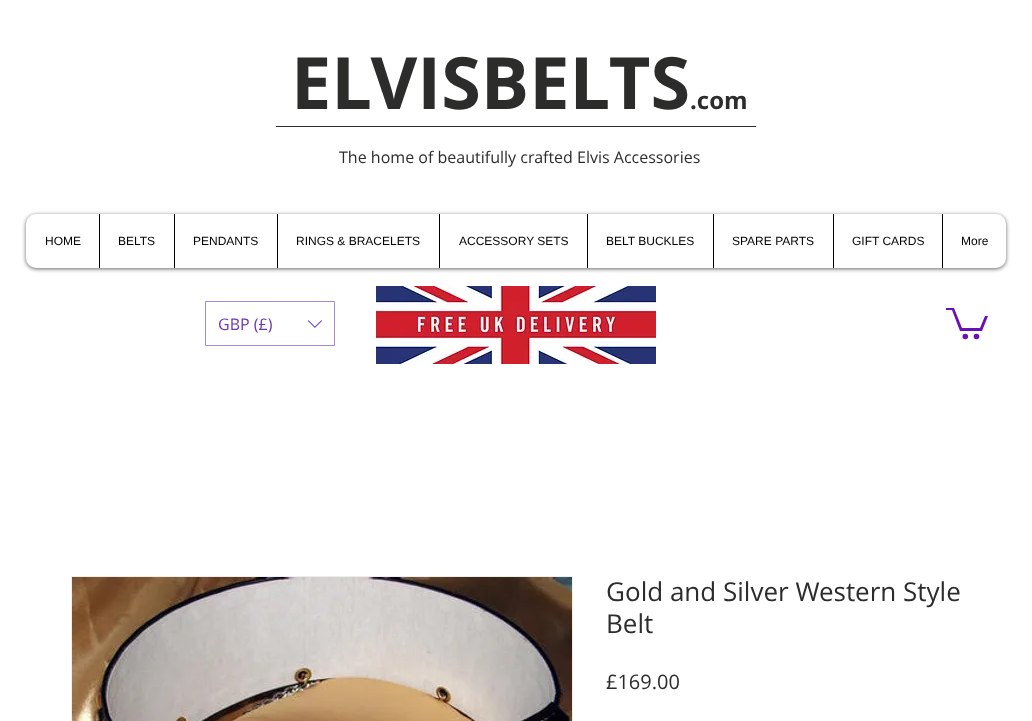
<svg xmlns="http://www.w3.org/2000/svg" width="1032" height="721" viewBox="0 0 1032 721">
  <rect width="100%" height="100%" fill="#fff"/>
  <path d="M276 126h480v1H276z" fill="#2c2c2b"/>
  <rect x="26" y="215" width="980" height="54" rx="10" fill="#00000099" filter="blur(2px)"/>
  <rect x="26" y="214" width="980" height="54" rx="10" fill="#fff"/>
  <path d="M99 214h1v54H99z" fill="#000"/>
  <path d="M174 214h1v54H174z" fill="#000"/>
  <path d="M277 214h1v54H277z" fill="#000"/>
  <path d="M439 214h1v54H439z" fill="#000"/>
  <path d="M587 214h1v54H587z" fill="#000"/>
  <path d="M713 214h1v54H713z" fill="#000"/>
  <path d="M833 214h1v54H833z" fill="#000"/>
  <path d="M942 214h1v54H942z" fill="#000"/>
  <path d="M205.5 301.5h129v44H205.5z" fill="none" stroke="#a787d2"/>
  <image x="307" y="320" width="15" height="8" href="img/1.png"/>
  <image x="376" y="286" width="280" height="78" href="img/2.png"/>
  <path d="M988 316L982 331H960L952 310H946V308H954L962 328H980L985 316" fill="#6a10b8"/>
  <circle cx="976.5" cy="336.5" r="2.8" fill="#6a10b8"/>
  <circle cx="965.3" cy="336.5" r="2.8" fill="#6a10b8"/>
  <path d="M71.5 576.5h501v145H71.5z" fill="none" stroke="#ededec"/>
  <image x="72" y="577" width="500" height="144" href="img/3.png"/>
  <text x="291" y="109" font-family="Open Sans" font-size="72" font-weight="bold" fill="#2c2c2b">ELVISBELTS</text>
  <text x="690" y="109" font-family="Open Sans" font-size="24" font-weight="bold" fill="#2c2c2b">.com</text>
  <text x="339" y="163" font-family="Open Sans" font-size="16" fill="#2c2c2b">The home of beautifully crafted Elvis Accessories</text>
  <g font-family="Liberation Sans" font-size="12" fill="#000">
    <text x="45" y="245">HOME</text>
    <text x="118" y="245">BELTS</text>
    <text x="193" y="245">PENDANTS</text>
    <text x="296" y="245">RINGS &amp; BRACELETS</text>
    <text x="459" y="245">ACCESSORY SETS</text>
    <text x="606" y="245">BELT BUCKLES</text>
    <text x="732" y="245">SPARE PARTS</text>
    <text x="852" y="245">GIFT CARDS</text>
    <text x="961" y="245">More</text>
  </g>
  <text x="218" y="330" font-family="Open Sans" font-size="16" fill="#6c37b4">GBP (£)</text>
  <g font-family="Open Sans" font-size="26" fill="#2c2c2b">
    <text x="606" y="601">Gold and Silver Western Style</text>
    <text x="606" y="633">Belt</text>
  </g>
  <text x="606" y="689" font-family="Open Sans" font-size="20" fill="#2c2c2b">£169.00</text>
</svg>
